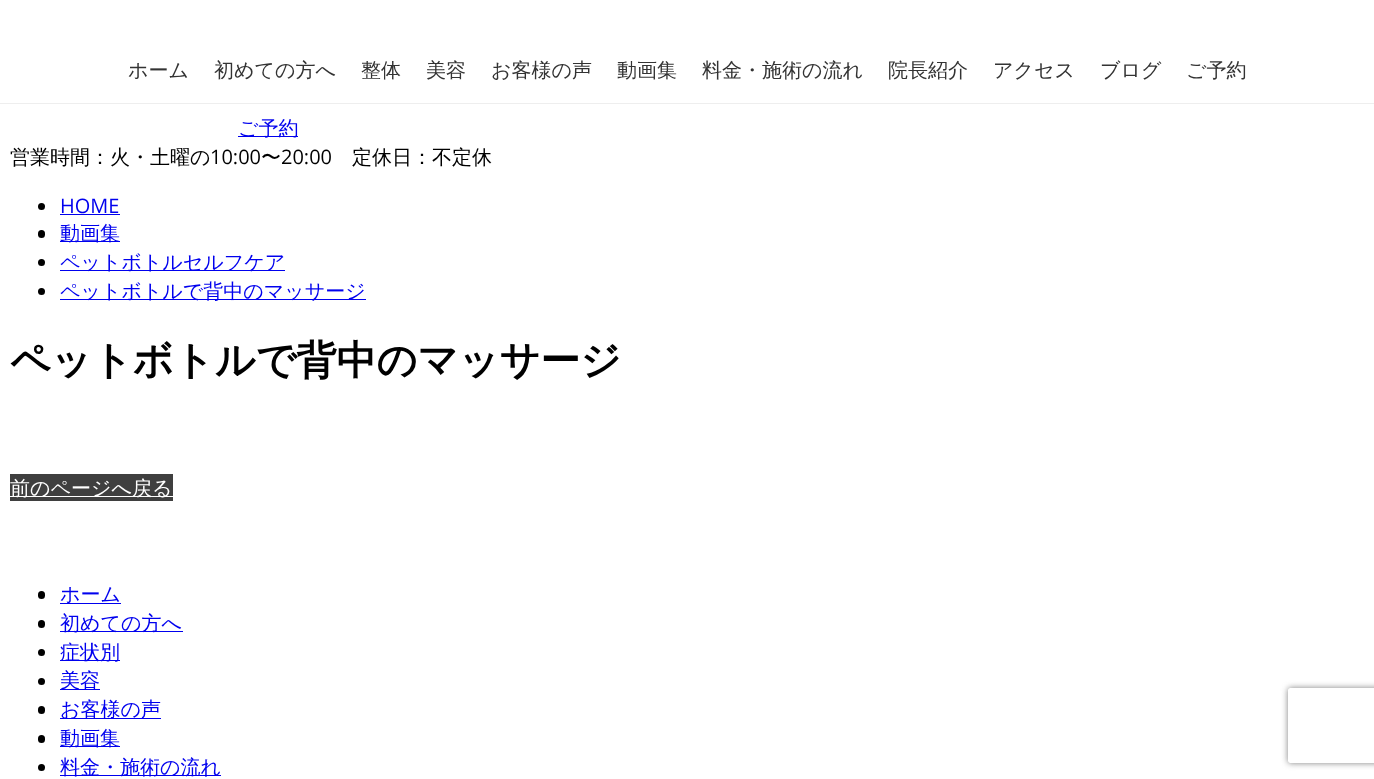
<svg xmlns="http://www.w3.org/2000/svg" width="1374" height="779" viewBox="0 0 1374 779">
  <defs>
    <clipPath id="clip1"><path d="M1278 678H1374V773H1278ZM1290.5 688H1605.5C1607 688 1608 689 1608 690.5V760.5C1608 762 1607 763 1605.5 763H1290.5C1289 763 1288 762 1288 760.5V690.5C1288 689 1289 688 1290.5 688Z" clip-rule="evenodd"/></clipPath>
  </defs>
  <rect width="100%" height="100%" fill="#fff"/>
  <path d="M0 103h1374v1H0z" fill="#eee"/>
  <path d="M238 136h60v1H238z" fill="#00e"/>
  <circle cx="41.5" cy="206.5" r="3.5" fill="#000"/>
  <path d="M60 214h60v1H60z" fill="#00e"/>
  <rect x="38" y="230" width="7" height="8" rx="3.5" fill="#000"/>
  <path d="M60 241h60v1H60z" fill="#00e"/>
  <circle cx="41.5" cy="262.5" r="3.5" fill="#000"/>
  <path d="M60 270h225v1H60z" fill="#00e"/>
  <circle cx="41.5" cy="291.5" r="3.5" fill="#000"/>
  <path d="M60 299h306v1H60z" fill="#00e"/>
  <path d="M10 474h163v27H10z" fill="#3f3f3f"/>
  <path d="M10 496h163v1H10z" fill="#fff"/>
  <rect x="38" y="591" width="7" height="8" rx="3.5" fill="#000"/>
  <path d="M60 603h61v1H60z" fill="#00e"/>
  <rect x="38" y="620" width="7" height="8" rx="3.5" fill="#000"/>
  <path d="M60 631h123v1H60z" fill="#00e"/>
  <circle cx="41.5" cy="652.5" r="3.5" fill="#000"/>
  <path d="M60 660h60v1H60z" fill="#00e"/>
  <circle cx="41.5" cy="681.5" r="3.5" fill="#000"/>
  <path d="M60 689h40v1H60z" fill="#00e"/>
  <rect x="38" y="706" width="7" height="8" rx="3.5" fill="#000"/>
  <path d="M60 718h101v1H60z" fill="#00e"/>
  <rect x="38" y="735" width="7" height="8" rx="3.5" fill="#000"/>
  <path d="M60 746h60v1H60z" fill="#00e"/>
  <circle cx="41.5" cy="767.5" r="3.5" fill="#000"/>
  <path d="M60 775h161v1H60z" fill="#00e"/>
  <g clip-path="url(#clip1)">
    <rect x="1288" y="688" width="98" height="75" rx="2.5" fill="#808080" filter="blur(3px)"/>
  </g>
  <g font-family="WenQuanYi Zen Hei" font-size="20" font-weight="500" fill="#333">
    <text x="128" y="77">ホーム</text>
    <text x="214" y="77">初めての方へ</text>
    <text x="361" y="77">整体</text>
    <text x="426" y="77">美容</text>
    <text x="491" y="77">お客様の声</text>
    <text x="617" y="77">動画集</text>
    <text x="702" y="77">料金・施術の流れ</text>
    <text x="888" y="77">院長紹介</text>
    <text x="993" y="77">アクセス</text>
    <text x="1100" y="77">ブログ</text>
    <text x="1186" y="77">ご予約</text>
  </g>
  <text x="238" y="135" font-family="WenQuanYi Zen Hei" font-size="20" font-weight="500" fill="#00e">ご予約</text>
  <text x="10" y="164" font-family="WenQuanYi Zen Hei" font-size="20" font-weight="500" fill="#000">営業時間：火・土曜の</text>
  <text x="210" y="164" font-family="Open Sans" font-size="20" fill="#000">10:00</text>
  <text x="261" y="164" font-family="WenQuanYi Zen Hei" font-size="20" font-weight="500" fill="#000">〜</text>
  <text x="281" y="164" font-family="Open Sans" font-size="20" fill="#000">20:00</text>
  <text x="352" y="164" font-family="WenQuanYi Zen Hei" font-size="20" font-weight="500" fill="#000">定休日：不定休</text>
  <text x="60" y="213" font-family="Open Sans" font-size="20" fill="#00e">HOME</text>
  <g font-family="WenQuanYi Zen Hei" font-size="20" font-weight="500" fill="#00e">
    <text x="60" y="240">動画集</text>
    <text x="60" y="269">ペットボトルセルフケア</text>
    <text x="60" y="298">ペットボトルで背中のマッサージ</text>
  </g>
  <text x="10" y="374" font-family="WenQuanYi Zen Hei" font-size="40" font-weight="bold" fill="#000">ペットボトルで背中のマッサージ</text>
  <text x="10" y="495" font-family="WenQuanYi Zen Hei" font-size="20" font-weight="500" fill="#fff">前のページへ戻る</text>
  <g font-family="WenQuanYi Zen Hei" font-size="20" font-weight="500" fill="#00e">
    <text x="60" y="601">ホーム</text>
    <text x="60" y="630">初めての方へ</text>
    <text x="60" y="659">症状別</text>
    <text x="60" y="687">美容</text>
    <text x="60" y="716">お客様の声</text>
    <text x="60" y="745">動画集</text>
    <text x="60" y="774">料金・施術の流れ</text>
  </g>
</svg>
